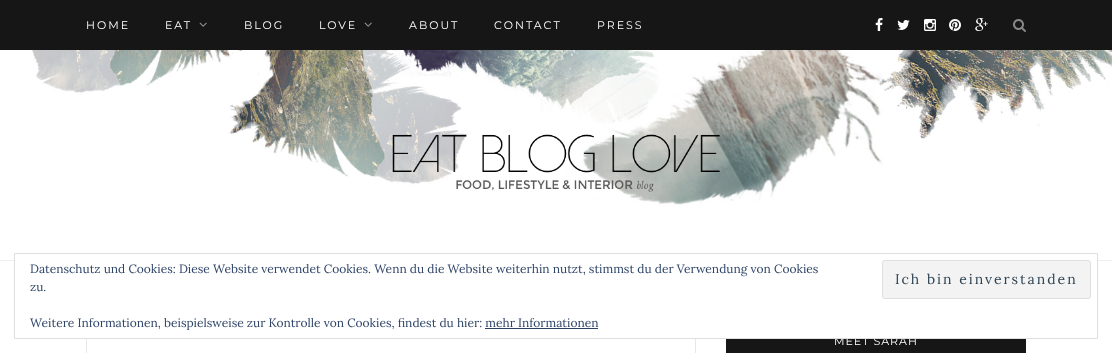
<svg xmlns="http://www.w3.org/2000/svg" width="1112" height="353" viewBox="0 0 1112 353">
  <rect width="100%" height="100%" fill="#fff"/>
  <path d="M0 0h1112v50H0z" fill="#161616"/>
  <image x="199" y="22" width="8" height="5" href="img/1.png"/>
  <image x="364" y="22" width="8" height="5" href="img/1.png"/>
  <image x="875" y="18" width="8" height="13" href="img/2.png"/>
  <image x="897" y="20" width="13" height="10" href="img/3.png"/>
  <image x="924" y="19" width="12" height="12" href="img/4.png"/>
  <image x="949" y="19" width="12" height="12" href="img/5.png"/>
  <image x="975" y="18" width="13" height="13" href="img/6.png"/>
  <image x="1013" y="19" width="13" height="13" href="img/7.png"/>
  <path d="M0 260h1112v1H0z" fill="#eee"/>
  <image x="32" y="50" width="1080" height="155" href="img/8.png"/>
  <path d="M86.5 321.5h609v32H86.5z" fill="none" stroke="#e8e8e8"/>
  <path d="M15 260h1082v78H15z" fill="#fff"/>
  <path d="M726 339h300v14H726z" fill="#161616"/>
  <g font-family="Montserrat" font-size="11" letter-spacing="2" fill="#fff">
    <text x="86" y="29">HOME</text>
    <text x="165" y="29">EAT</text>
    <text x="244" y="29">BLOG</text>
    <text x="319" y="29">LOVE</text>
    <text x="409" y="29">ABOUT</text>
    <text x="494" y="29">CONTACT</text>
    <text x="597" y="29">PRESS</text>
  </g>
  <text x="834" y="345" font-family="Montserrat" font-size="11" letter-spacing="1" fill="#fff">MEET SARAH</text>
  <path d="M14.5 253.5h1083v85H14.5z" fill="none" stroke="#dedede"/>
  <rect x="882.5" y="260.5" width="208" height="38" rx="2.5" fill="#f3f3f3" stroke="#dedede"/>
  <text x="895" y="284" font-family="Lora" font-size="14" letter-spacing="2" fill="#2e4453">Ich bin einverstanden</text>
  <path d="M485 328h113v1H485z" fill="#2e4467"/>
  <g font-family="Lora" font-size="12" fill="#2e4467">
    <text x="30" y="327">Weitere Informationen, beispielsweise zur Kontrolle von Cookies, findest du hier: mehr Informationen</text>
    <text x="30" y="291">zu.</text>
    <text x="30" y="273">Datenschutz und Cookies: Diese Website verwendet Cookies. Wenn du die Website weiterhin nutzt, stimmst du der Verwendung von Cookies</text>
  </g>
</svg>
